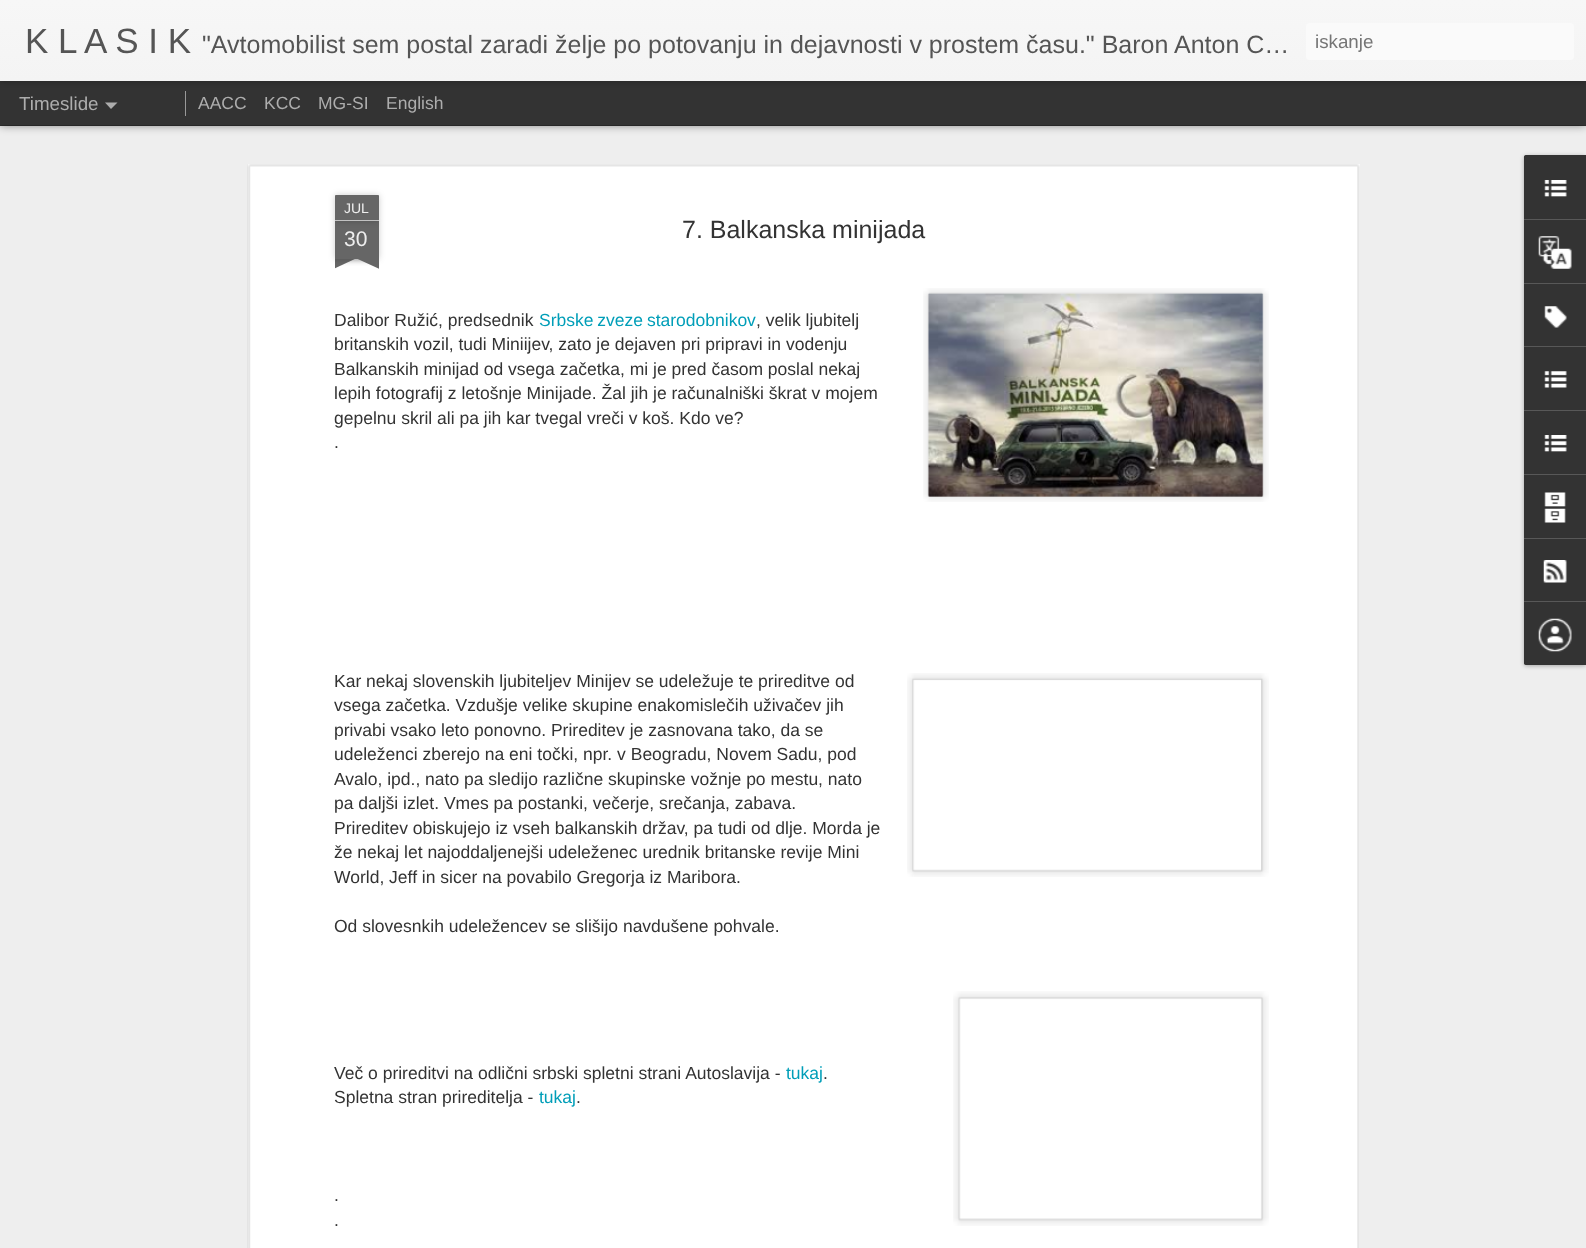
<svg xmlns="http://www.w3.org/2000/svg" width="1586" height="1248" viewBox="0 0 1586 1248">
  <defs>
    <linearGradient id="g1" gradientUnits="userSpaceOnUse" x1="0" y1="0" x2="0" y2="81"><stop offset="0" stop-color="#f7f7f7"/><stop offset="1" stop-color="#f4f4f4"/></linearGradient>
    <clipPath id="clip1"><path d="M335 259h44v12H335z"/></clipPath>
    <clipPath id="clip2"><path d="M335 259h44v12H335z"/></clipPath>
  </defs>
  <rect width="100%" height="100%" fill="#333"/>
  <path d="M0 126h1586v1122H0z" fill="#eee"/>
  <path d="M0 81h1586v44H0z" fill="#00000080" filter="blur(5px)"/>
  <path d="M0 81h1586v44H0z" fill="#333"/>
  <path d="M0 0h1586v81H0z" fill="#0000004d" filter="blur(3px)"/>
  <path d="M0 0h1586v81H0z" fill="url(#g1)"/>
  <rect x="1306" y="23" width="268" height="37" rx="4" fill="#fafafa"/>
  <path d="M105 102.5H117.5L111 109Z" fill="#adadad"/>
  <path d="M185 91h1v25H185z" fill="#999"/>
  <path d="M248 164h1112v1084H248z" fill="#fff"/>
  <image x="247" y="164" width="1113" height="1084" href="img/1.png"/>
  <path d="M335 221h44v38H335z" fill="#00000033" filter="blur(3px)"/>
  <path d="M335 221h44v38H335z" fill="#666"/>
  <rect x="335" y="195" width="44" height="26" rx="1" fill="#00000033" filter="blur(3px)"/>
  <path d="M336 195H378C378.5 195 379 195.5 379 196V221H335V196C335 195.5 335.5 195 336 195Z" fill="#666"/>
  <path d="M335 220h44v1H335z" fill="#c2c2c2"/>
  <g clip-path="url(#clip1)">
    <path d="M324 246h62v13H324z" fill="#00000033" filter="blur(3px)"/>
  </g>
  <g clip-path="url(#clip2)">
    <path d="M323 260L380 234L385 245L329 271Z" fill="#666"/>
  </g>
  <g clip-path="url(#clip1)">
    <path d="M328 246h62v13H328z" fill="#00000033" filter="blur(3px)"/>
  </g>
  <g clip-path="url(#clip2)">
    <path d="M332 234L389 260L384 271L327 245Z" fill="#666"/>
  </g>
  <image x="907" y="673" width="362" height="204" href="img/2.png"/>
  <image x="953" y="991" width="316" height="235" href="img/3.png"/>
  <image x="923" y="288" width="346" height="214" href="img/4.png"/>
  <image x="927" y="292" width="337" height="205" href="img/5.png"/>
  <rect x="1524" y="156" width="62" height="510" rx="2.5" fill="#0000004d" filter="blur(2px)"/>
  <path d="M1526.5 155H1586V665H1526.5C1525 665 1524 664 1524 662.5V157.5C1524 156 1525 155 1526.5 155Z" fill="#333"/>
  <path d="M1526.5 155H1586V219H1524V157.5C1524 156 1525 155 1526.5 155Z" fill="#333"/>
  <image x="1544" y="180" width="23" height="17" href="img/6.png"/>
  <path d="M1524 219h62v1H1524z" fill="#585858"/>
  <image x="1538" y="236" width="34" height="33" href="img/7.png"/>
  <path d="M1524 283h62v1H1524z" fill="#585858"/>
  <image x="1544" y="306" width="23" height="22" href="img/8.png"/>
  <path d="M1524 346h62v1H1524z" fill="#585858"/>
  <image x="1544" y="371" width="23" height="17" href="img/9.png"/>
  <path d="M1524 410h62v1H1524z" fill="#585858"/>
  <image x="1544" y="435" width="23" height="17" href="img/6.png"/>
  <path d="M1524 474h62v1H1524z" fill="#585858"/>
  <image x="1544" y="492" width="22" height="31" href="img/10.png"/>
  <path d="M1524 538h62v1H1524z" fill="#585858"/>
  <image x="1543" y="560" width="24" height="23" href="img/11.png"/>
  <path d="M1524 601H1586V665H1526.5C1525 665 1524 664 1524 662.5Z" fill="#333"/>
  <path d="M1524 601h62v1H1524z" fill="#585858"/>
  <image x="1538" y="618" width="34" height="34" href="img/12.png"/>
  <text x="25" y="53" font-family="Liberation Sans" font-size="35" fill="#555">K L A S I K</text>
  <text x="202" y="53" font-family="Liberation Sans" font-size="25" fill="#555">"Avtomobilist sem postal zaradi želje po potovanju in dejavnosti v prostem času." Baron Anton C…</text>
  <text x="1315" y="48" font-family="Liberation Sans" font-size="18.75" fill="#757575">iskanje</text>
  <text x="19" y="110" font-family="Liberation Sans" font-size="18.75" fill="#adadad">Timeslide</text>
  <g font-family="Liberation Sans" font-size="17.5" fill="#adadad">
    <text x="198" y="109">AACC</text>
    <text x="264" y="109">KCC</text>
    <text x="318" y="109">MG-SI</text>
    <text x="386" y="109">English</text>
  </g>
  <text x="344" y="213" font-family="Liberation Sans" font-size="14" fill="#eee">JUL</text>
  <text x="344" y="246" font-family="Liberation Sans" font-size="21" fill="#eee">30</text>
  <text x="682" y="238" font-family="Liberation Sans" font-size="25" fill="#333">7. Balkanska minijada</text>
  <text x="334" y="326" font-family="Liberation Sans" font-size="17.5" fill="#333">Dalibor Ružić, predsednik</text>
  <text x="539" y="326" word-spacing="-1" font-family="Liberation Sans" font-size="17.5" fill="#009eb8">Srbske zveze starodobnikov</text>
  <g font-family="Liberation Sans" font-size="17.5" fill="#333">
    <text x="756" y="326">, velik ljubitelj</text>
    <text x="334" y="350">britanskih vozil, tudi Miniijev, zato je dejaven pri pripravi in vodenju</text>
    <text x="334" y="375">Balkanskih minijad od vsega začetka, mi je pred časom poslal nekaj</text>
    <text x="334" y="399">lepih fotografij z letošnje Minijade. Žal jih je računalniški škrat v mojem</text>
    <text x="334" y="424">gepelnu skril ali pa jih kar tvegal vreči v koš. Kdo ve?</text>
    <text x="334" y="448">.</text>
    <text x="334" y="687">Kar nekaj slovenskih ljubiteljev Minijev se udeležuje te prireditve od</text>
    <text x="334" y="711">vsega začetka. Vzdušje velike skupine enakomislečih uživačev jih</text>
    <text x="334" y="736">privabi vsako leto ponovno. Prireditev je zasnovana tako, da se</text>
    <text x="334" y="760">udeleženci zberejo na eni točki, npr. v Beogradu, Novem Sadu, pod</text>
    <text x="334" y="785">Avalo, ipd., nato pa sledijo različne skupinske vožnje po mestu, nato</text>
    <text x="334" y="809">pa daljši izlet. Vmes pa postanki, večerje, srečanja, zabava.</text>
    <text x="334" y="834">Prireditev obiskujejo iz vseh balkanskih držav, pa tudi od dlje. Morda je</text>
    <text x="334" y="858">že nekaj let najoddaljenejši udeleženec urednik britanske revije Mini</text>
    <text x="334" y="883">World, Jeff in sicer na povabilo Gregorja iz Maribora.</text>
    <text x="334" y="932">Od slovesnkih udeležencev se slišijo navdušene pohvale.</text>
    <text x="334" y="1079">Več o prireditvi na odlični srbski spletni strani Autoslavija -</text>
  </g>
  <text x="786" y="1079" font-family="Liberation Sans" font-size="17.5" fill="#009eb8">tukaj</text>
  <g font-family="Liberation Sans" font-size="17.5" fill="#333">
    <text x="823" y="1079">.</text>
    <text x="334" y="1103">Spletna stran prireditelja -</text>
  </g>
  <text x="539" y="1103" font-family="Liberation Sans" font-size="17.5" fill="#009eb8">tukaj</text>
  <g font-family="Liberation Sans" font-size="17.5" fill="#333">
    <text x="576" y="1103">.</text>
    <text x="334" y="1201">.</text>
    <text x="334" y="1226">.</text>
  </g>
</svg>
